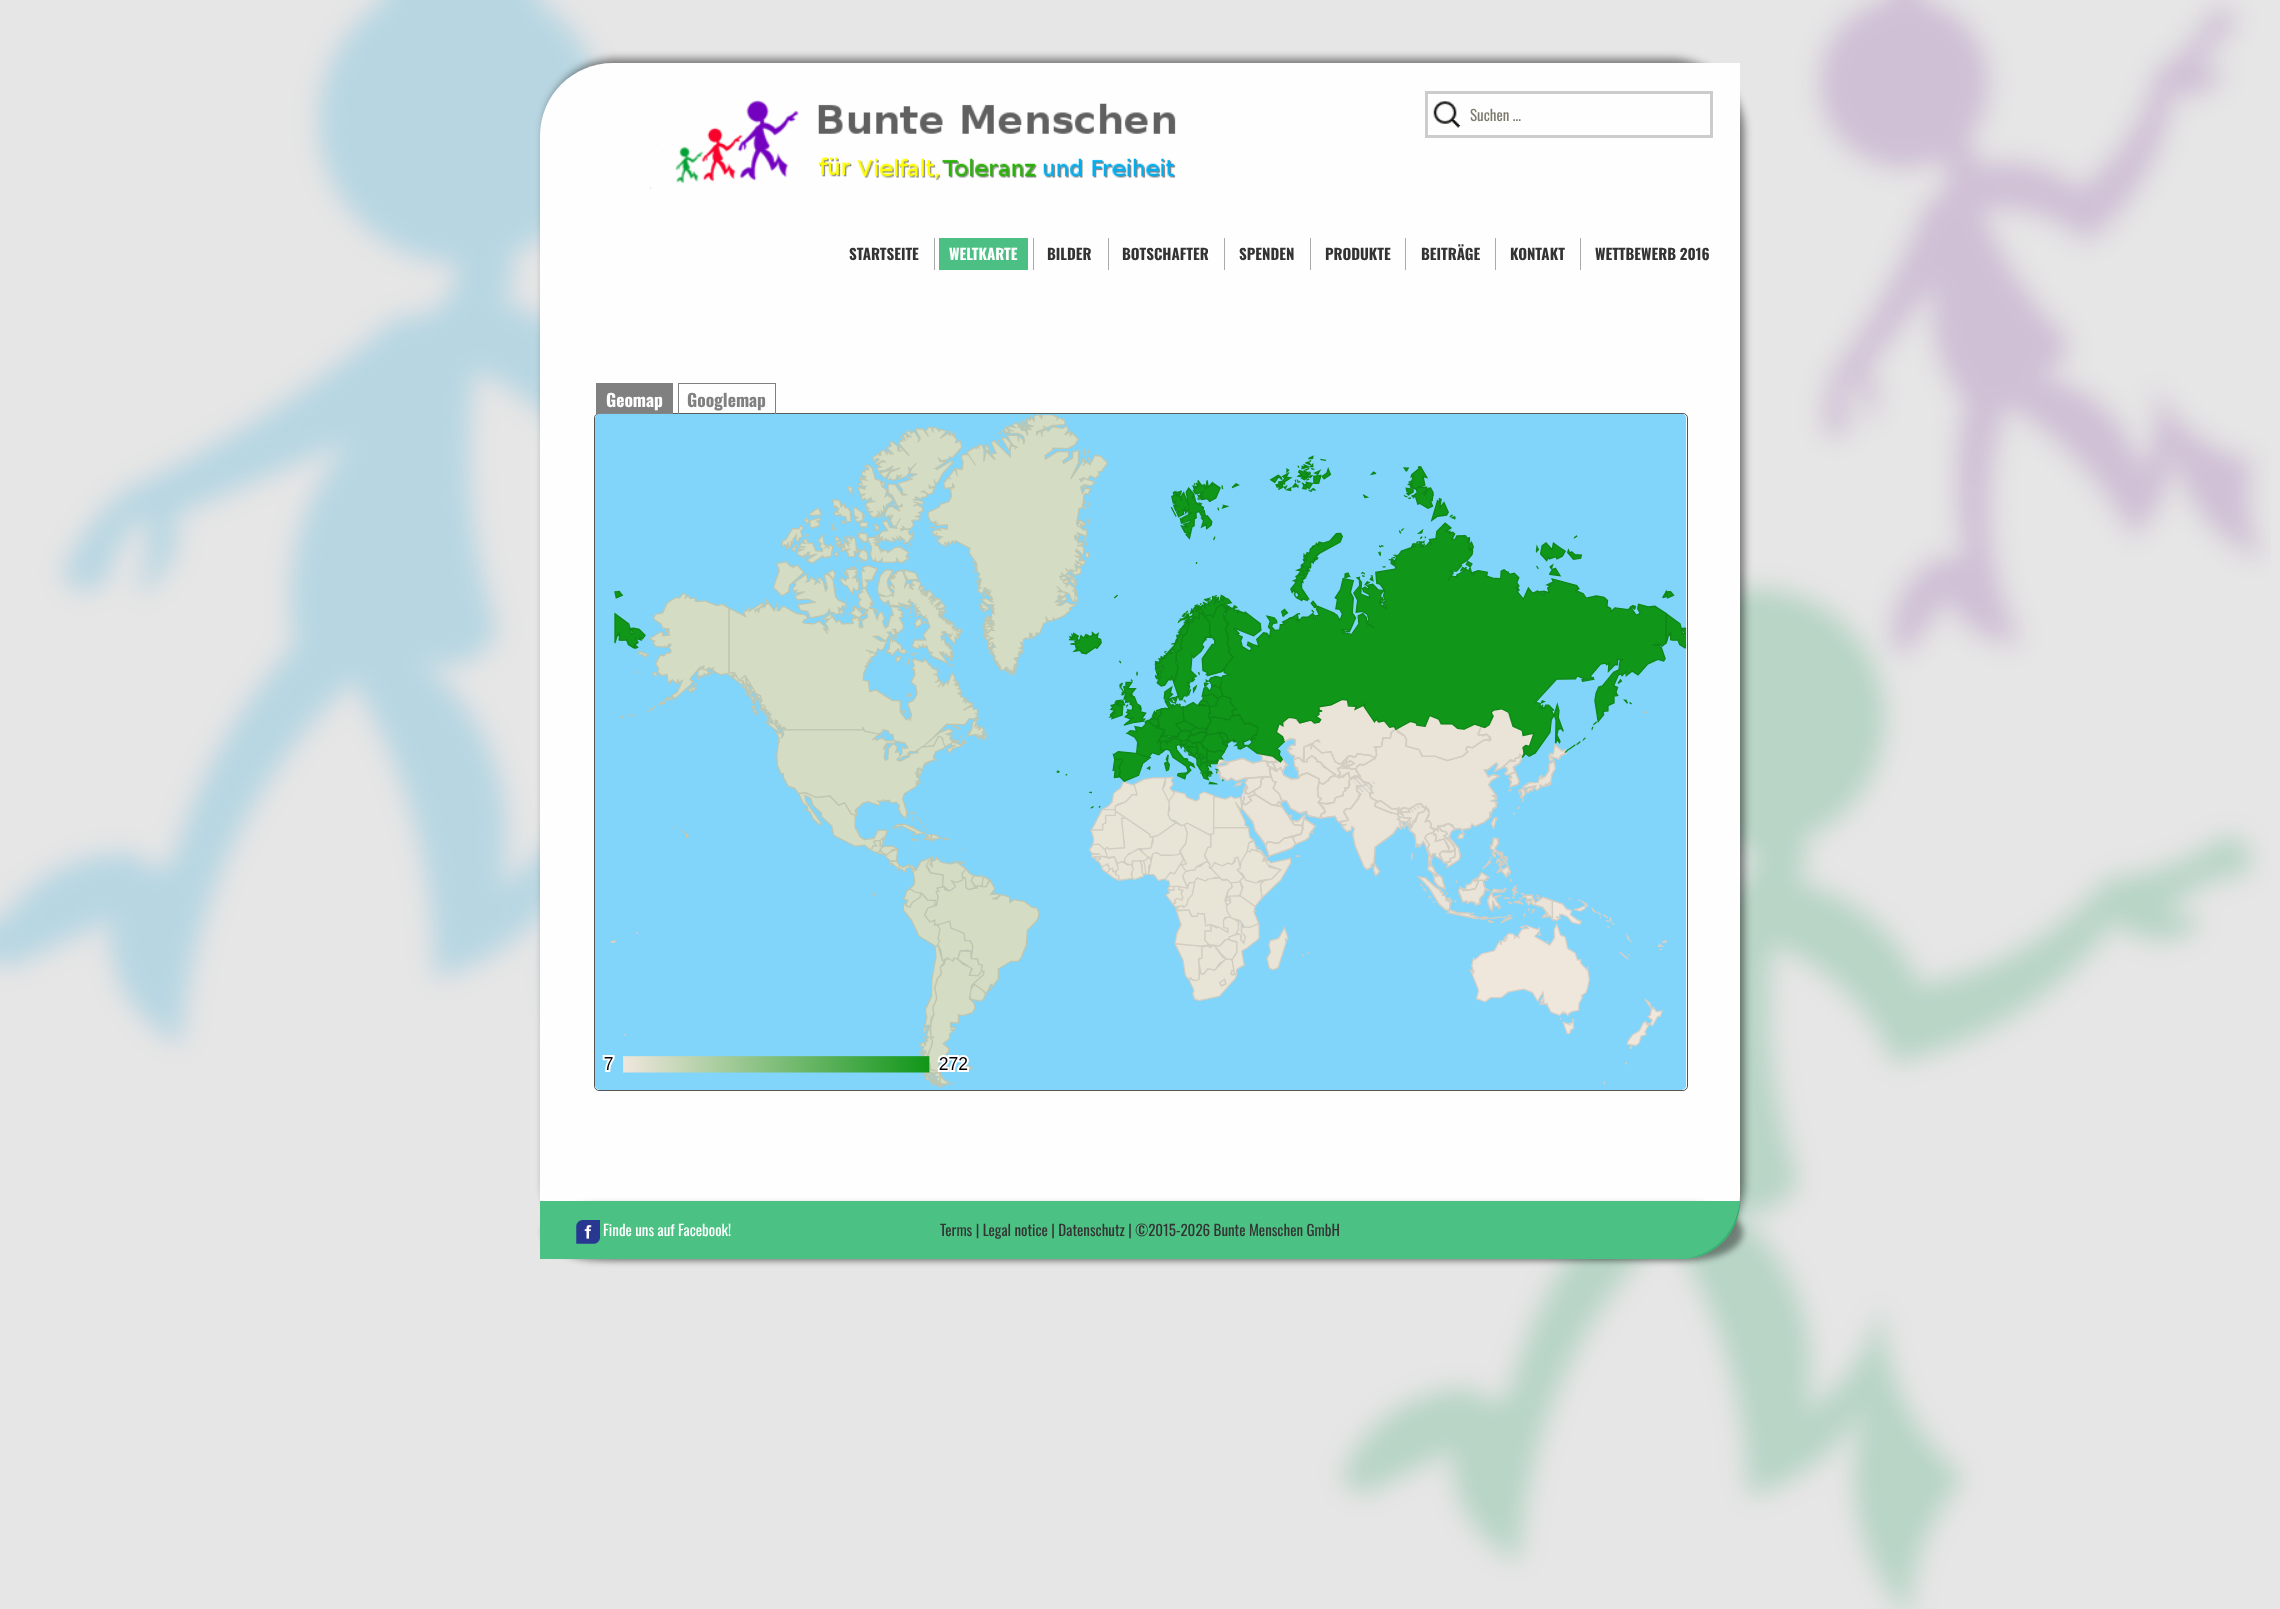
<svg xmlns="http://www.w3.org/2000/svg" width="2280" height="1609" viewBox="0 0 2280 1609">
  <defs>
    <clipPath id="clip1"><path d="M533 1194H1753V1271H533ZM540 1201H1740C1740 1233 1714 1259 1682 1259H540Z" clip-rule="evenodd"/></clipPath>
  </defs>
  <rect width="100%" height="100%" fill="#e6e6e6"/>
  <image x="0" y="0" width="2271" height="1609" href="img/1.png"/>
  <rect x="544" y="59" width="1200" height="1196" rx="73" fill="#00000080" filter="blur(4.5px)"/>
  <path d="M613 63H1740V1196C1740 1231 1712 1259 1677 1259H540V136C540 95.5 572.5 63 613 63Z" fill="#fefefe"/>
  <image x="649" y="100" width="527" height="89" href="img/2.png"/>
  <image x="1433" y="101" width="28" height="27" href="img/3.png"/>
  <path d="M1426.5 92.5h285v44H1426.5z" fill="none" stroke="#ccc" stroke-width="3"/>
  <path d="M934 238h1v32H934z" fill="#aaa"/>
  <path d="M1033 238h1v32H1033z" fill="#aaa"/>
  <path d="M939 238h89v32H939z" fill="#4cc084"/>
  <path d="M1108 238h1v32H1108z" fill="#aaa"/>
  <path d="M1224 238h1v32H1224z" fill="#aaa"/>
  <path d="M1310 238h1v32H1310z" fill="#aaa"/>
  <path d="M1405 238h1v32H1405z" fill="#aaa"/>
  <path d="M1495 238h1v32H1495z" fill="#aaa"/>
  <path d="M1580 238h1v32H1580z" fill="#aaa"/>
  <rect x="594.5" y="413.5" width="1093" height="677" rx="4.5" fill="none" stroke="#555"/>
  <path d="M596 383h77v32H596z" fill="#808080"/>
  <path d="M678 383h98v1H678z" fill="#808080"/>
  <path d="M775 383h1v32H775z" fill="#808080"/>
  <path d="M678 383h1v32H678z" fill="#808080"/>
  <image x="595" y="413" width="1092" height="677" href="img/4.png"/>
  <g clip-path="url(#clip1)">
    <rect x="543" y="1204" width="1200" height="57" rx="58" fill="#00000066" filter="blur(3px)"/>
  </g>
  <path d="M540 1201H1740C1740 1233 1714 1259 1682 1259H540Z" fill="#00a650b3"/>
  <image x="576" y="1220" width="24" height="24" href="img/5.png"/>
  <text x="1470" y="121" font-family="Oswald" font-size="15" fill="#7d7b6d">Suchen …</text>
  <text x="849" y="260" font-family="Oswald" font-size="15" font-weight="bold" fill="#333">STARTSEITE</text>
  <text x="949" y="260" font-family="Oswald" font-size="15" font-weight="bold" fill="#fff">WELTKARTE</text>
  <g font-family="Oswald" font-size="15" font-weight="bold" fill="#333">
    <text x="1047" y="260">BILDER</text>
    <text x="1122" y="260">BOTSCHAFTER</text>
    <text x="1239" y="260">SPENDEN</text>
    <text x="1325" y="260">PRODUKTE</text>
    <text x="1421" y="260">BEITRÄGE</text>
    <text x="1510" y="260">KONTAKT</text>
    <text x="1595" y="260">WETTBEWERB 2016</text>
  </g>
  <text x="606" y="407" font-family="Oswald" font-size="17.5" font-weight="bold" fill="#fff">Geomap</text>
  <text x="687" y="407" font-family="Oswald" font-size="17.5" font-weight="bold" fill="#808080">Googlemap</text>
  <text x="603" y="1236" font-family="Oswald" font-size="15" fill="#fff">Finde uns auf Facebook!</text>
  <text x="940" y="1236" font-family="Oswald" font-size="15" fill="#333">Terms | Legal notice | Datenschutz | ©2015-2026 Bunte Menschen GmbH</text>
</svg>
